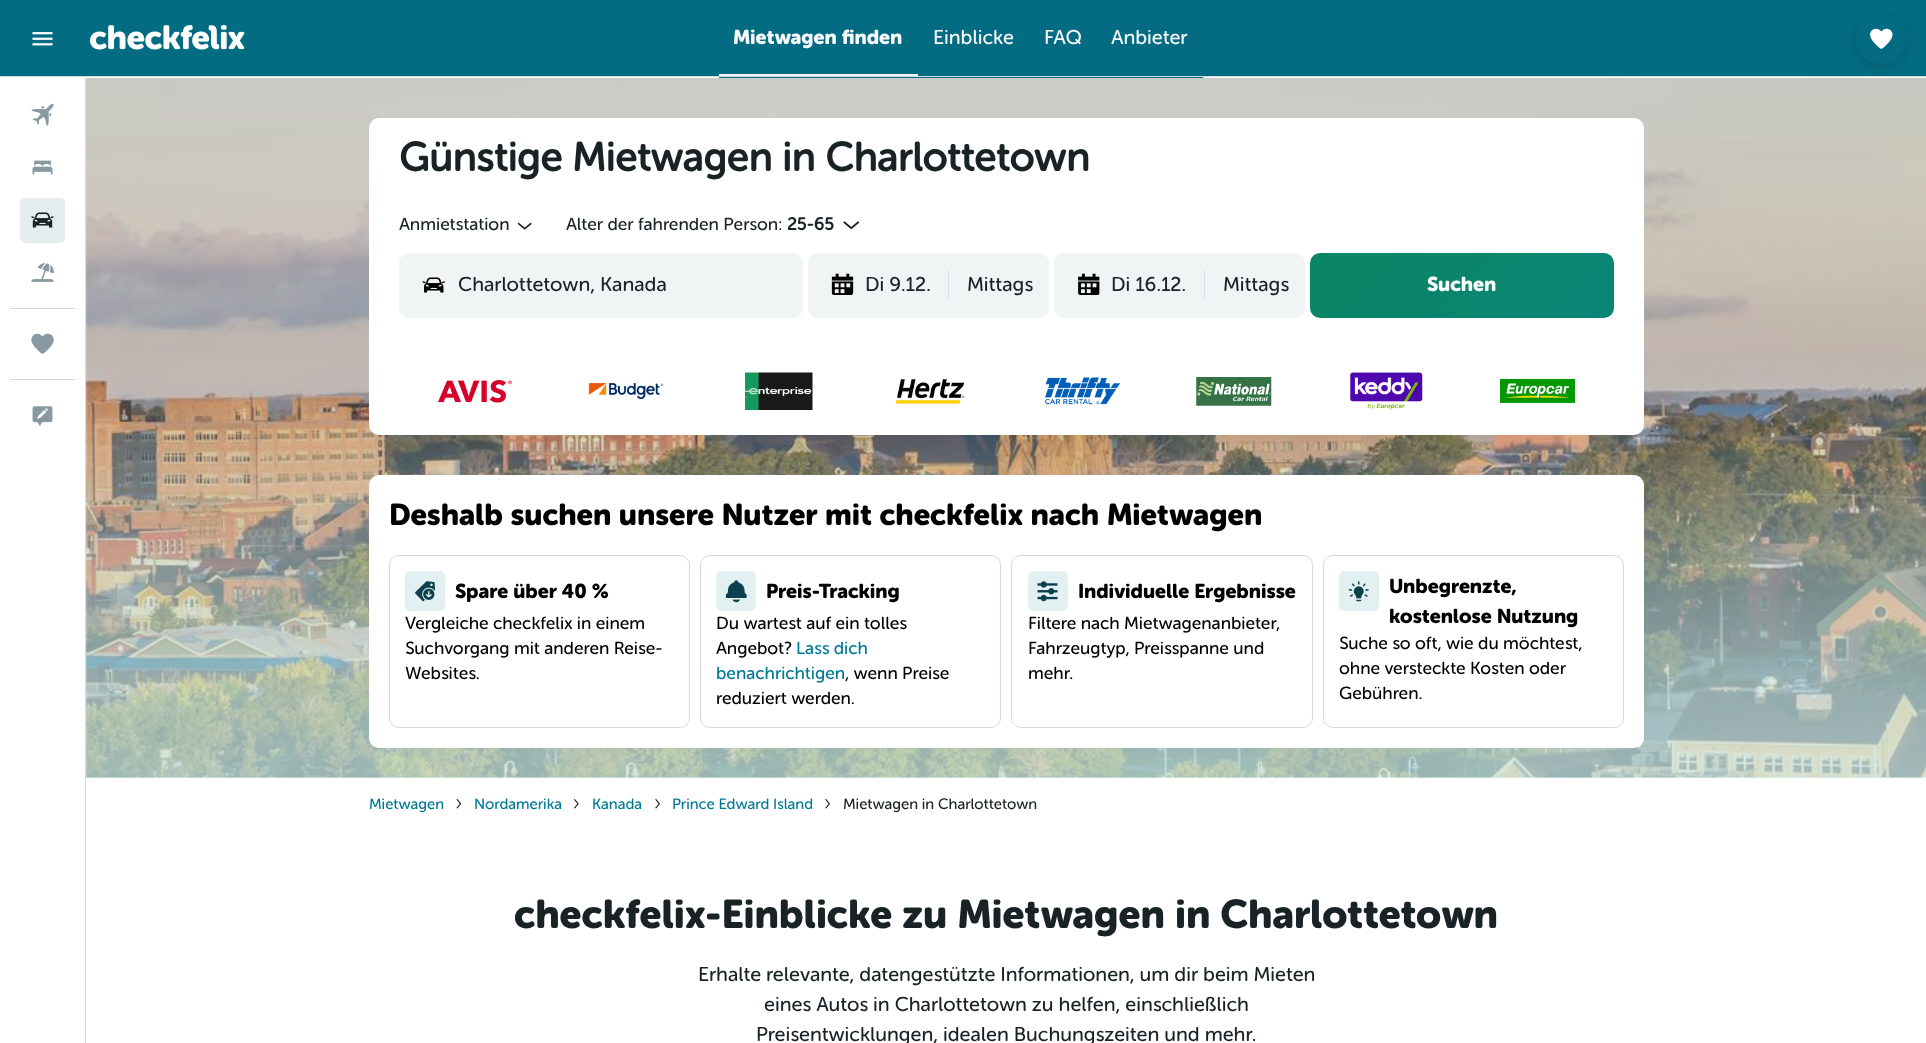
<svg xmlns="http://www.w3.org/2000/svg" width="1926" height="1043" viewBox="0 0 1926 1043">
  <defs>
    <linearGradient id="g1" gradientUnits="userSpaceOnUse" x1="1006" y1="778" x2="1006" y2="78"><stop offset="0" stop-color="#d6faf9" stop-opacity="0.7"/><stop offset="0.12" stop-color="#d6faf9" stop-opacity="0.66"/><stop offset="0.25" stop-color="#d6faf9" stop-opacity="0.55"/><stop offset="0.38" stop-color="#d6faf9" stop-opacity="0.39"/><stop offset="0.5" stop-color="#d6faf9" stop-opacity="0.2"/><stop offset="0.62" stop-color="#d6faf9" stop-opacity="0.08"/><stop offset="0.75" stop-color="#d6faf9" stop-opacity="0.06"/><stop offset="0.88" stop-color="#d6faf9" stop-opacity="0.04"/><stop offset="1" stop-color="#d6faf9" stop-opacity="0"/></linearGradient>
    <linearGradient id="g2" gradientUnits="userSpaceOnUse" x1="1370" y1="193" x2="1554" y2="377"><stop offset="0" stop-color="#0a8564"/><stop offset="1" stop-color="#0a8576"/></linearGradient>
  </defs>
  <rect width="100%" height="100%" fill="#fff"/>
  <path d="M86 78h1840v700H86z" fill="#dddede"/>
  <path d="M0 76h1926v1H0z" fill="#d2dce0"/>
  <path d="M0 0h1926v76H0z" fill="#036b82"/>
  <image x="32" y="32" width="21" height="14" href="img/1.png"/>
  <image x="90" y="25" width="155" height="25" href="img/2.png"/>
  <path d="M719 76h484v2H719z" fill="#036b82"/>
  <path d="M719 76h484v1H719z" fill="#d2dce0"/>
  <path d="M719 74h199v2H719z" fill="#f9fafb"/>
  <image x="86" y="78" width="1840" height="700" href="img/10.png"/>
  <rect x="1856" y="18" width="50" height="50" rx="25" fill="#19222429" filter="blur(4px)"/>
  <circle cx="1881" cy="39" r="25" fill="#036b82"/>
  <image x="1870" y="28" width="23" height="21" href="img/3.png"/>
  <path d="M85 78h1v965H85z" fill="#d2dce0"/>
  <image x="31" y="103" width="23" height="24" href="img/4.png"/>
  <image x="32" y="160" width="21" height="15" href="img/5.png"/>
  <rect x="20" y="198" width="45" height="45" rx="5" fill="#e6edef"/>
  <image x="31" y="212" width="23" height="16" href="img/6.png"/>
  <image x="31" y="263" width="23" height="19" href="img/7.png"/>
  <path d="M10 308h65v1H10z" fill="#d2dce0"/>
  <image x="31" y="333" width="23" height="21" href="img/8.png"/>
  <path d="M10 379h65v1H10z" fill="#d2dce0"/>
  <image x="32" y="406" width="21" height="20" href="img/9.png"/>
  <path d="M86 158h1840v620H86z" fill="url(#g1)"/>
  <rect x="369" y="118" width="1275" height="317" rx="10" fill="#fff"/>
  <image x="517" y="222" width="15" height="8" href="img/11.png"/>
  <image x="843" y="221" width="17" height="8" href="img/12.png"/>
  <rect x="399.5" y="253.5" width="403" height="64" rx="9.5" fill="#f0f4f5" stroke="#f0f4f5"/>
  <image x="422" y="277" width="23" height="16" href="img/13.png"/>
  <rect x="808" y="253" width="241" height="65" rx="10" fill="#f0f4f5"/>
  <rect x="808" y="253" width="138" height="65" rx="10" fill="#f0f4f5"/>
  <image x="831" y="273" width="23" height="22" href="img/14.png"/>
  <path d="M948 270h1v30H948z" fill="#d9e4e8"/>
  <rect x="1054" y="253" width="251" height="65" rx="10" fill="#f0f4f5"/>
  <rect x="1054" y="253" width="149" height="65" rx="10" fill="#f0f4f5"/>
  <image x="1078" y="273" width="22" height="22" href="img/15.png"/>
  <path d="M1204 270h1v30H1204z" fill="#d9e4e8"/>
  <rect x="1310" y="253" width="304" height="65" rx="10" fill="url(#g2)"/>
  <image x="437" y="379" width="76" height="24" href="img/16.png"/>
  <image x="588" y="383" width="76" height="17" href="img/17.png"/>
  <image x="745" y="372" width="68" height="38" href="img/18.png"/>
  <image x="895" y="379" width="70" height="25" href="img/19.png"/>
  <image x="1045" y="377" width="75" height="28" href="img/20.png"/>
  <image x="1196" y="377" width="76" height="29" href="img/21.png"/>
  <image x="1350" y="372" width="73" height="38" href="img/22.png"/>
  <image x="1500" y="378" width="75" height="25" href="img/23.png"/>
  <rect x="369" y="475" width="1275" height="273" rx="10" fill="#fff"/>
  <rect x="389.5" y="555.5" width="300" height="172" rx="9.5" fill="none" stroke="#d2dce0"/>
  <rect x="405" y="571" width="40" height="40" rx="5" fill="#e3f0f2"/>
  <image x="415" y="581" width="20" height="21" href="img/24.png"/>
  <rect x="700.5" y="555.5" width="300" height="172" rx="9.5" fill="none" stroke="#d2dce0"/>
  <rect x="716" y="571" width="40" height="40" rx="5" fill="#e3f0f2"/>
  <image x="725" y="580" width="22" height="23" href="img/25.png"/>
  <rect x="1011.5" y="555.5" width="301" height="172" rx="9.5" fill="none" stroke="#d2dce0"/>
  <rect x="1028" y="571" width="40" height="40" rx="5" fill="#e3f0f2"/>
  <image x="1037" y="581" width="21" height="21" href="img/26.png"/>
  <rect x="1323.5" y="555.5" width="300" height="172" rx="9.5" fill="none" stroke="#d2dce0"/>
  <rect x="1339" y="571" width="40" height="40" rx="5" fill="#e3f0f2"/>
  <image x="1348" y="581" width="21" height="21" href="img/27.png"/>
  <image x="456" y="799" width="6" height="10" href="img/28.png"/>
  <image x="574" y="799" width="5" height="10" href="img/29.png"/>
  <image x="655" y="799" width="5" height="10" href="img/30.png"/>
  <image x="825" y="799" width="5" height="10" href="img/30.png"/>
  <text x="733" y="44" font-family="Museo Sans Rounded" font-size="20" font-weight="bold" fill="#f9fafb">Mietwagen finden</text>
  <g font-family="Museo Sans Rounded" font-size="20" fill="#f9fafb">
    <text x="933" y="44">Einblicke</text>
    <text x="1044" y="44">FAQ</text>
    <text x="1111" y="44">Anbieter</text>
  </g>
  <text x="399" y="171" font-family="'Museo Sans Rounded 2'" font-size="40" font-weight="bold" fill="#192224">Günstige Mietwagen in Charlottetown</text>
  <g font-family="Museo Sans Rounded" font-size="17.5" fill="#192224">
    <text x="399" y="230">Anmietstation</text>
    <text x="566" y="230">Alter der fahrenden Person:</text>
  </g>
  <text x="787" y="230" font-family="'Museo Sans Rounded 2'" font-size="17.5" font-weight="bold" fill="#192224">25-65</text>
  <g font-family="Museo Sans Rounded" font-size="20" fill="#192224">
    <text x="458" y="291">Charlottetown, Kanada</text>
    <text x="865" y="291">Di 9.12.</text>
    <text x="967" y="291">Mittags</text>
    <text x="1111" y="291">Di 16.12.</text>
    <text x="1223" y="291">Mittags</text>
  </g>
  <text x="1427" y="291" font-family="Museo Sans Rounded" font-size="20" font-weight="bold" fill="#fff">Suchen</text>
  <text x="389" y="525" font-family="Museo Sans Rounded" font-size="30" font-weight="bold" fill="#000">Deshalb suchen unsere Nutzer mit checkfelix nach Mietwagen</text>
  <text x="455" y="598" font-family="Museo Sans Rounded" font-size="20" font-weight="bold" fill="#000">Spare über 40 %</text>
  <g font-family="Museo Sans Rounded" font-size="17.5" fill="#000">
    <text x="405" y="629">Vergleiche checkfelix in einem</text>
    <text x="405" y="654">Suchvorgang mit anderen Reise-</text>
    <text x="405" y="679">Websites.</text>
  </g>
  <text x="766" y="598" font-family="Museo Sans Rounded" font-size="20" font-weight="bold" fill="#000">Preis-Tracking</text>
  <g font-family="Museo Sans Rounded" font-size="17.5" fill="#000">
    <text x="716" y="629">Du wartest auf ein tolles</text>
    <text x="716" y="654">Angebot?</text>
  </g>
  <g font-family="Museo Sans Rounded" font-size="17.5" fill="#007a94">
    <text x="796" y="654">Lass dich</text>
    <text x="716" y="679">benachrichtigen</text>
  </g>
  <g font-family="Museo Sans Rounded" font-size="17.5" fill="#000">
    <text x="845" y="679">, wenn Preise</text>
    <text x="716" y="704">reduziert werden.</text>
  </g>
  <text x="1078" y="598" font-family="Museo Sans Rounded" font-size="20" font-weight="bold" fill="#000">Individuelle Ergebnisse</text>
  <g font-family="Museo Sans Rounded" font-size="17.5" fill="#000">
    <text x="1028" y="629">Filtere nach Mietwagenanbieter,</text>
    <text x="1028" y="654">Fahrzeugtyp, Preisspanne und</text>
    <text x="1028" y="679">mehr.</text>
  </g>
  <g font-family="Museo Sans Rounded" font-size="20" font-weight="bold" fill="#000">
    <text x="1389" y="593">Unbegrenzte,</text>
    <text x="1389" y="623">kostenlose Nutzung</text>
  </g>
  <g font-family="Museo Sans Rounded" font-size="17.5" fill="#000">
    <text x="1339" y="649">Suche so oft, wie du möchtest,</text>
    <text x="1339" y="674">ohne versteckte Kosten oder</text>
    <text x="1339" y="699">Gebühren.</text>
  </g>
  <g font-family="Museo Sans Rounded" font-size="15" fill="#007a94">
    <text x="369" y="809">Mietwagen</text>
    <text x="474" y="809">Nordamerika</text>
    <text x="592" y="809">Kanada</text>
    <text x="672" y="809">Prince Edward Island</text>
  </g>
  <text x="843" y="809" font-family="Museo Sans Rounded" font-size="15" fill="#192224">Mietwagen in Charlottetown</text>
  <text x="514" y="928" font-family="Museo Sans Rounded" font-size="40" font-weight="bold" fill="#192224">checkfelix-Einblicke zu Mietwagen in Charlottetown</text>
  <g font-family="Museo Sans Rounded" font-size="20" fill="#192224">
    <text x="698" y="981">Erhalte relevante, datengestützte Informationen, um dir beim Mieten</text>
    <text x="764" y="1011">eines Autos in Charlottetown zu helfen, einschließlich</text>
    <text x="756" y="1041">Preisentwicklungen, idealen Buchungszeiten und mehr.</text>
  </g>
</svg>
